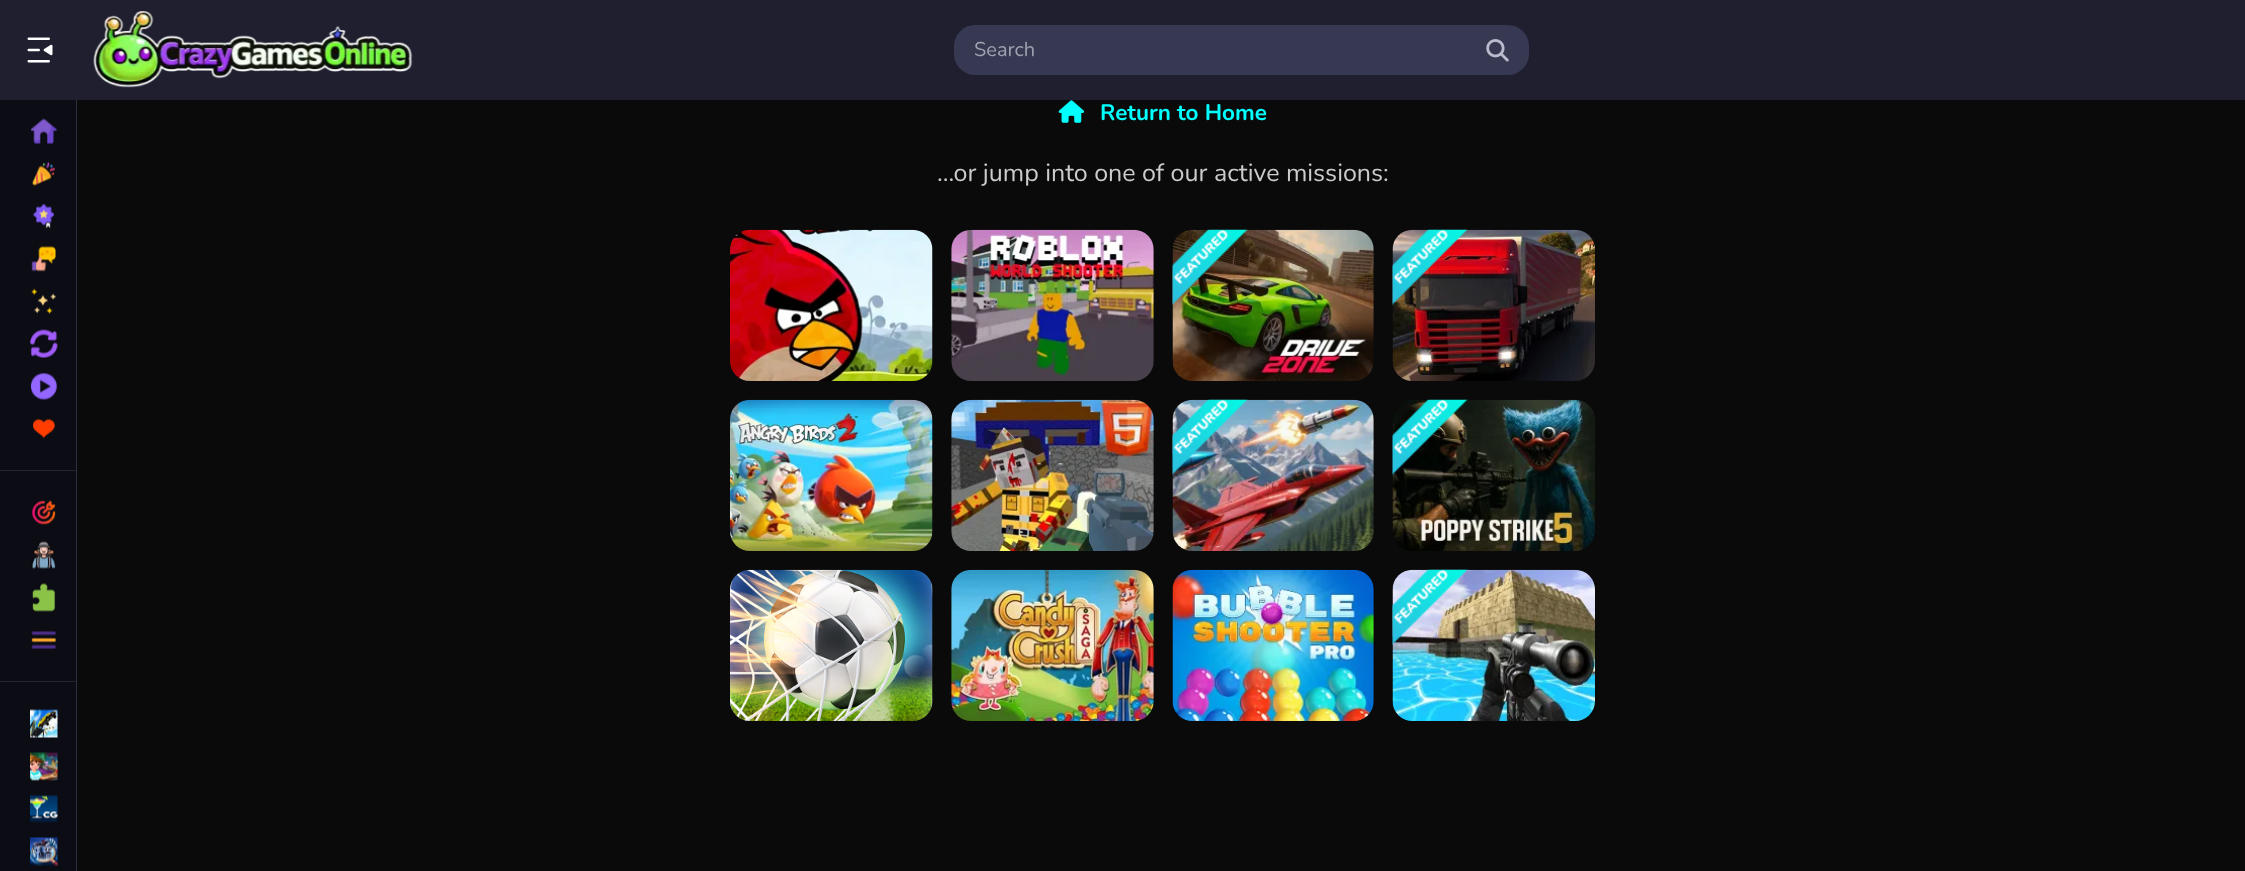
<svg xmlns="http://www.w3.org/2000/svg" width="2245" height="871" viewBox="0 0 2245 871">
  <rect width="100%" height="100%" fill="#0a0a0a"/>
  <path d="M0 0h2245v100H0z" fill="#1f1f30"/>
  <image x="27" y="37" width="26" height="26" href="img/1.png"/>
  <image x="93" y="11" width="320" height="77" href="img/2.png"/>
  <rect x="954" y="25" width="575" height="50" rx="21" fill="#373952"/>
  <image x="1486" y="39" width="23" height="23" href="img/3.png"/>
  <path d="M0 100h76v771H0z" fill="#0c0d14"/>
  <path d="M76 100h1v771H76z" fill="#2d2e3b"/>
  <image x="30" y="118" width="27" height="26" href="img/4.png"/>
  <image x="32" y="162" width="23" height="24" href="img/5.png"/>
  <image x="33" y="203" width="21" height="26" href="img/6.png"/>
  <image x="31" y="246" width="25" height="26" href="img/7.png"/>
  <image x="31" y="288" width="25" height="26" href="img/8.png"/>
  <image x="30" y="329" width="28" height="29" href="img/9.png"/>
  <image x="30" y="372" width="27" height="28" href="img/10.png"/>
  <image x="33" y="419" width="22" height="20" href="img/11.png"/>
  <path d="M0 470h76v1H0z" fill="#23242b"/>
  <image x="32" y="500" width="24" height="25" href="img/12.png"/>
  <image x="31" y="541" width="25" height="28" href="img/13.png"/>
  <image x="32" y="583" width="24" height="29" href="img/14.png"/>
  <image x="31" y="631" width="25" height="18" href="img/15.png"/>
  <path d="M0 681h76v1H0z" fill="#23242b"/>
  <image x="30" y="709" width="28" height="29" href="img/16.png"/>
  <image x="30" y="752" width="28" height="29" href="img/17.png"/>
  <image x="30" y="794" width="28" height="29" href="img/18.png"/>
  <image x="30" y="837" width="28" height="29" href="img/19.png"/>
  <image x="1058" y="100" width="26" height="23" href="img/20.png"/>
  <image x="730" y="229" width="203" height="152" href="img/21.png"/>
  <image x="951" y="229" width="203" height="152" href="img/22.png"/>
  <image x="1172" y="229" width="202" height="152" href="img/23.png"/>
  <image x="1172" y="229" width="77" height="77" href="img/24.png"/>
  <image x="1392" y="229" width="203" height="152" href="img/25.png"/>
  <image x="1392" y="229" width="77" height="77" href="img/26.png"/>
  <image x="730" y="399" width="203" height="152" href="img/27.png"/>
  <image x="951" y="399" width="203" height="152" href="img/28.png"/>
  <image x="1172" y="399" width="202" height="152" href="img/29.png"/>
  <image x="1172" y="399" width="77" height="77" href="img/30.png"/>
  <image x="1392" y="399" width="203" height="152" href="img/31.png"/>
  <image x="1392" y="399" width="77" height="77" href="img/32.png"/>
  <image x="730" y="569" width="203" height="152" href="img/33.png"/>
  <image x="951" y="569" width="203" height="152" href="img/34.png"/>
  <image x="1172" y="569" width="202" height="152" href="img/35.png"/>
  <image x="1392" y="569" width="203" height="152" href="img/36.png"/>
  <image x="1392" y="569" width="77" height="77" href="img/37.png"/>
  <text x="974" y="56" font-family="Nunito" font-size="20" fill="#9ca3af">Search</text>
  <text x="1100" y="120" font-family="Nunito" font-size="22.5" font-weight="bold" fill="#0ff">Return to Home</text>
  <text x="937" y="181" font-family="Nunito" font-size="25" fill="#ccc">...or jump into one of our active missions:</text>
</svg>
